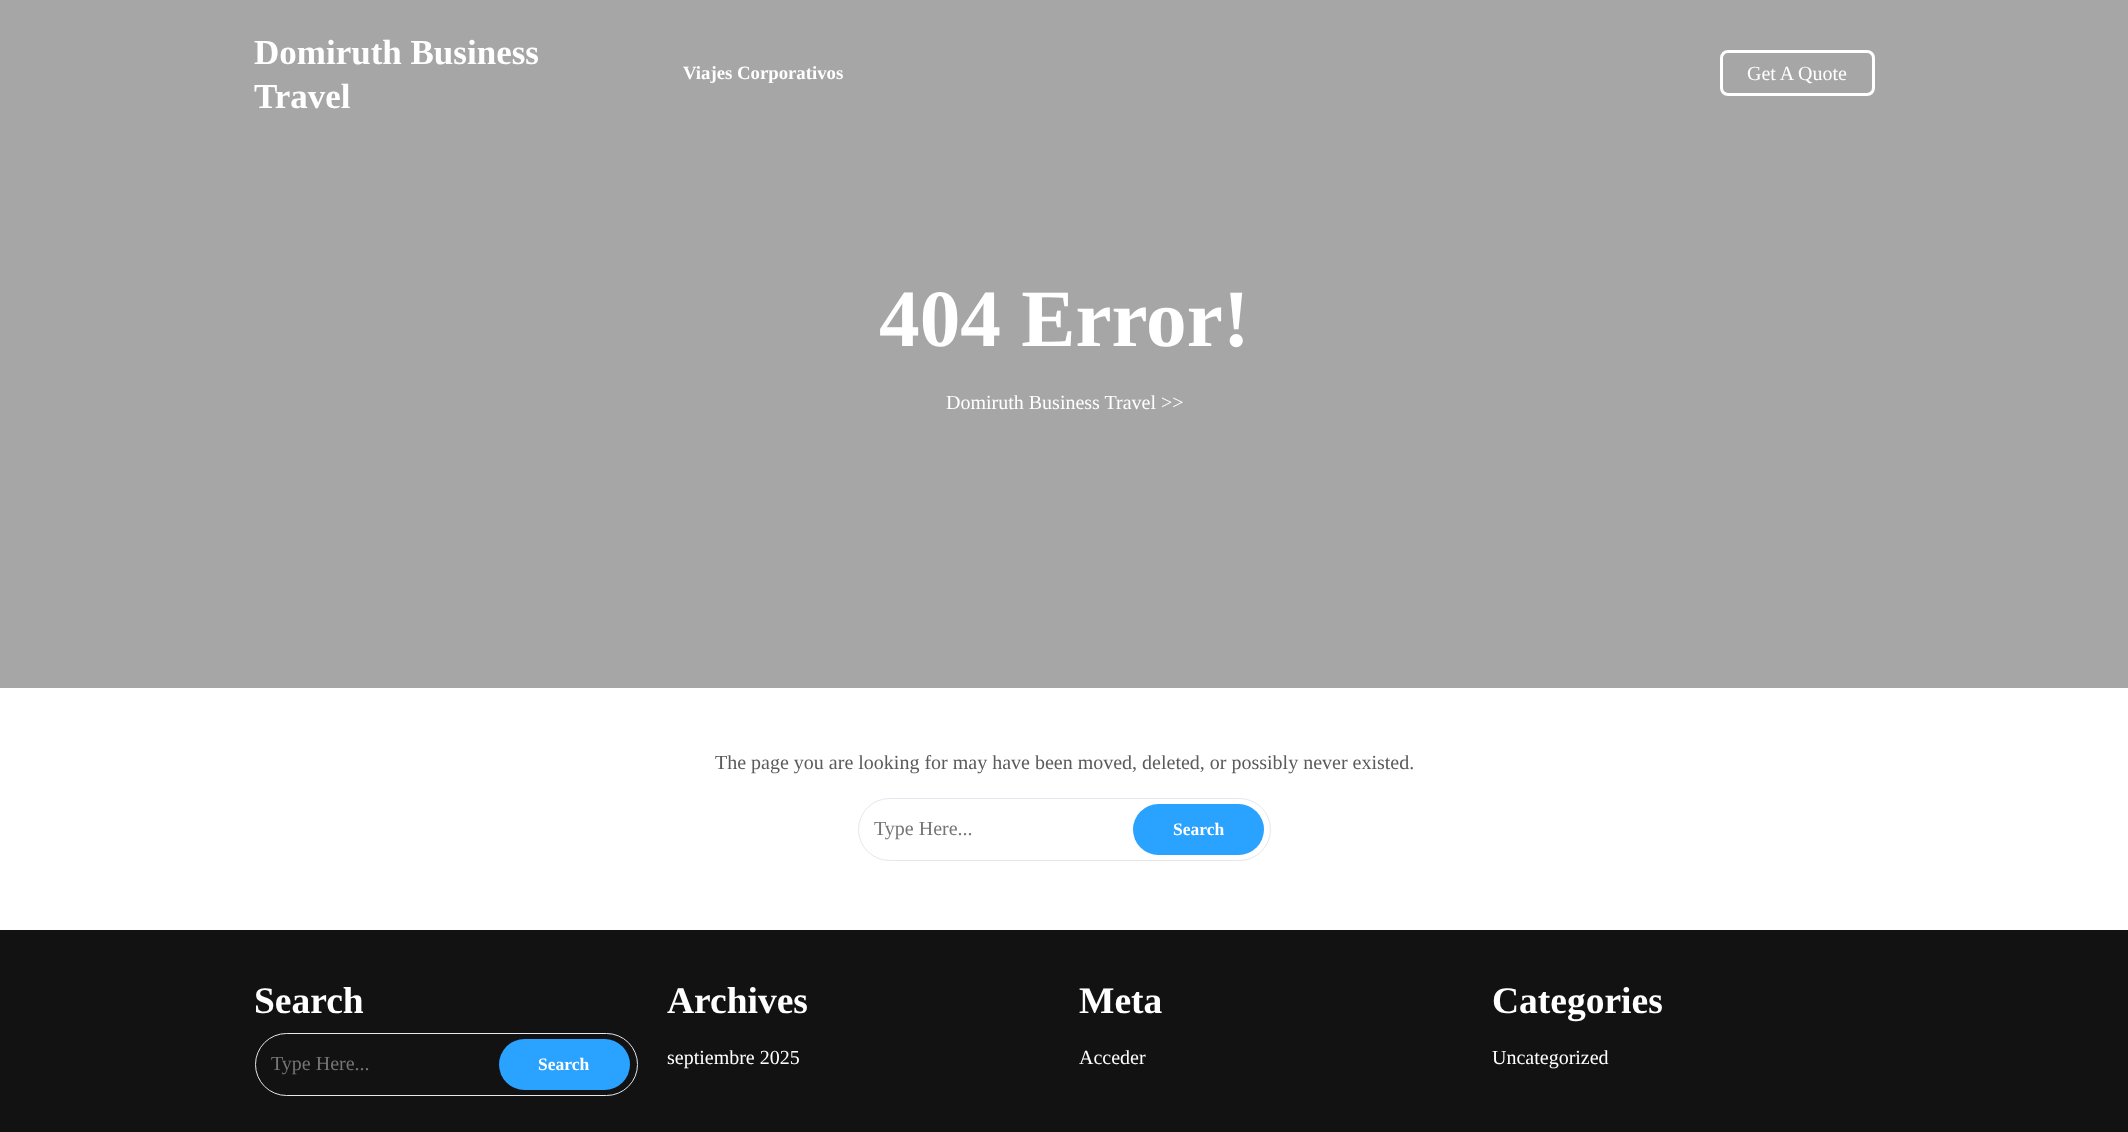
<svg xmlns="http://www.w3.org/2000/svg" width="2128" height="1132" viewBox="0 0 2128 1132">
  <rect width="100%" height="100%" fill="#fff"/>
  <path d="M0 0h2128v688H0z" fill="#a6a6a6"/>
  <rect x="1721.5" y="51.5" width="152" height="43" rx="6.5" fill="none" stroke="#fff" stroke-width="3"/>
  <rect x="858.5" y="798.5" width="412" height="62" rx="31" fill="none" stroke="#e4e7ee"/>
  <rect x="1133" y="804" width="131" height="51" rx="25.5" fill="#2aa2ff"/>
  <path d="M0 930h2128v202H0z" fill="#121212"/>
  <rect x="255.5" y="1033.5" width="382" height="62" rx="31" fill="none" stroke="#e4e7ee"/>
  <rect x="499" y="1039" width="131" height="51" rx="25.5" fill="#2aa2ff"/>
  <g font-family="Liberation Serif" font-size="35" font-weight="bold" fill="#fff">
    <text x="254" y="64">Domiruth Business</text>
    <text x="254" y="108">Travel</text>
  </g>
  <text x="683" y="79" font-family="Liberation Serif" font-size="18.75" font-weight="bold" fill="#fff">Viajes Corporativos</text>
  <text x="1747" y="80" font-family="Liberation Serif" font-size="20" fill="#fff">Get A Quote</text>
  <text x="879" y="346" font-family="Liberation Serif" font-size="81.25" font-weight="bold" fill="#fff">404 Error!</text>
  <g font-family="Liberation Serif" font-size="20" fill="#fff">
    <text x="946" y="409">Domiruth Business Travel</text>
    <text x="1161" y="409">&gt;&gt;</text>
  </g>
  <text x="715" y="769" font-family="Liberation Serif" font-size="20" fill="#5b5b5b">The page you are looking for may have been moved, deleted, or possibly never existed.</text>
  <text x="874" y="835" font-family="Liberation Serif" font-size="20" fill="#757575">Type Here...</text>
  <text x="1173" y="835" font-family="Liberation Serif" font-size="17.5" font-weight="bold" fill="#fff">Search</text>
  <text x="254" y="1013" font-family="Liberation Serif" font-size="37.5" font-weight="bold" fill="#fff">Search</text>
  <text x="271" y="1070" font-family="Liberation Serif" font-size="20" fill="#757575">Type Here...</text>
  <text x="538" y="1070" font-family="Liberation Serif" font-size="17.5" font-weight="bold" fill="#fff">Search</text>
  <text x="667" y="1013" font-family="Liberation Serif" font-size="37.5" font-weight="bold" fill="#fff">Archives</text>
  <text x="667" y="1064" font-family="Liberation Serif" font-size="20" fill="#fff">septiembre 2025</text>
  <text x="1079" y="1013" font-family="Liberation Serif" font-size="37.5" font-weight="bold" fill="#fff">Meta</text>
  <text x="1079" y="1064" font-family="Liberation Serif" font-size="20" fill="#fff">Acceder</text>
  <text x="1492" y="1013" font-family="Liberation Serif" font-size="37.5" font-weight="bold" fill="#fff">Categories</text>
  <text x="1492" y="1064" font-family="Liberation Serif" font-size="20" fill="#fff">Uncategorized</text>
</svg>
